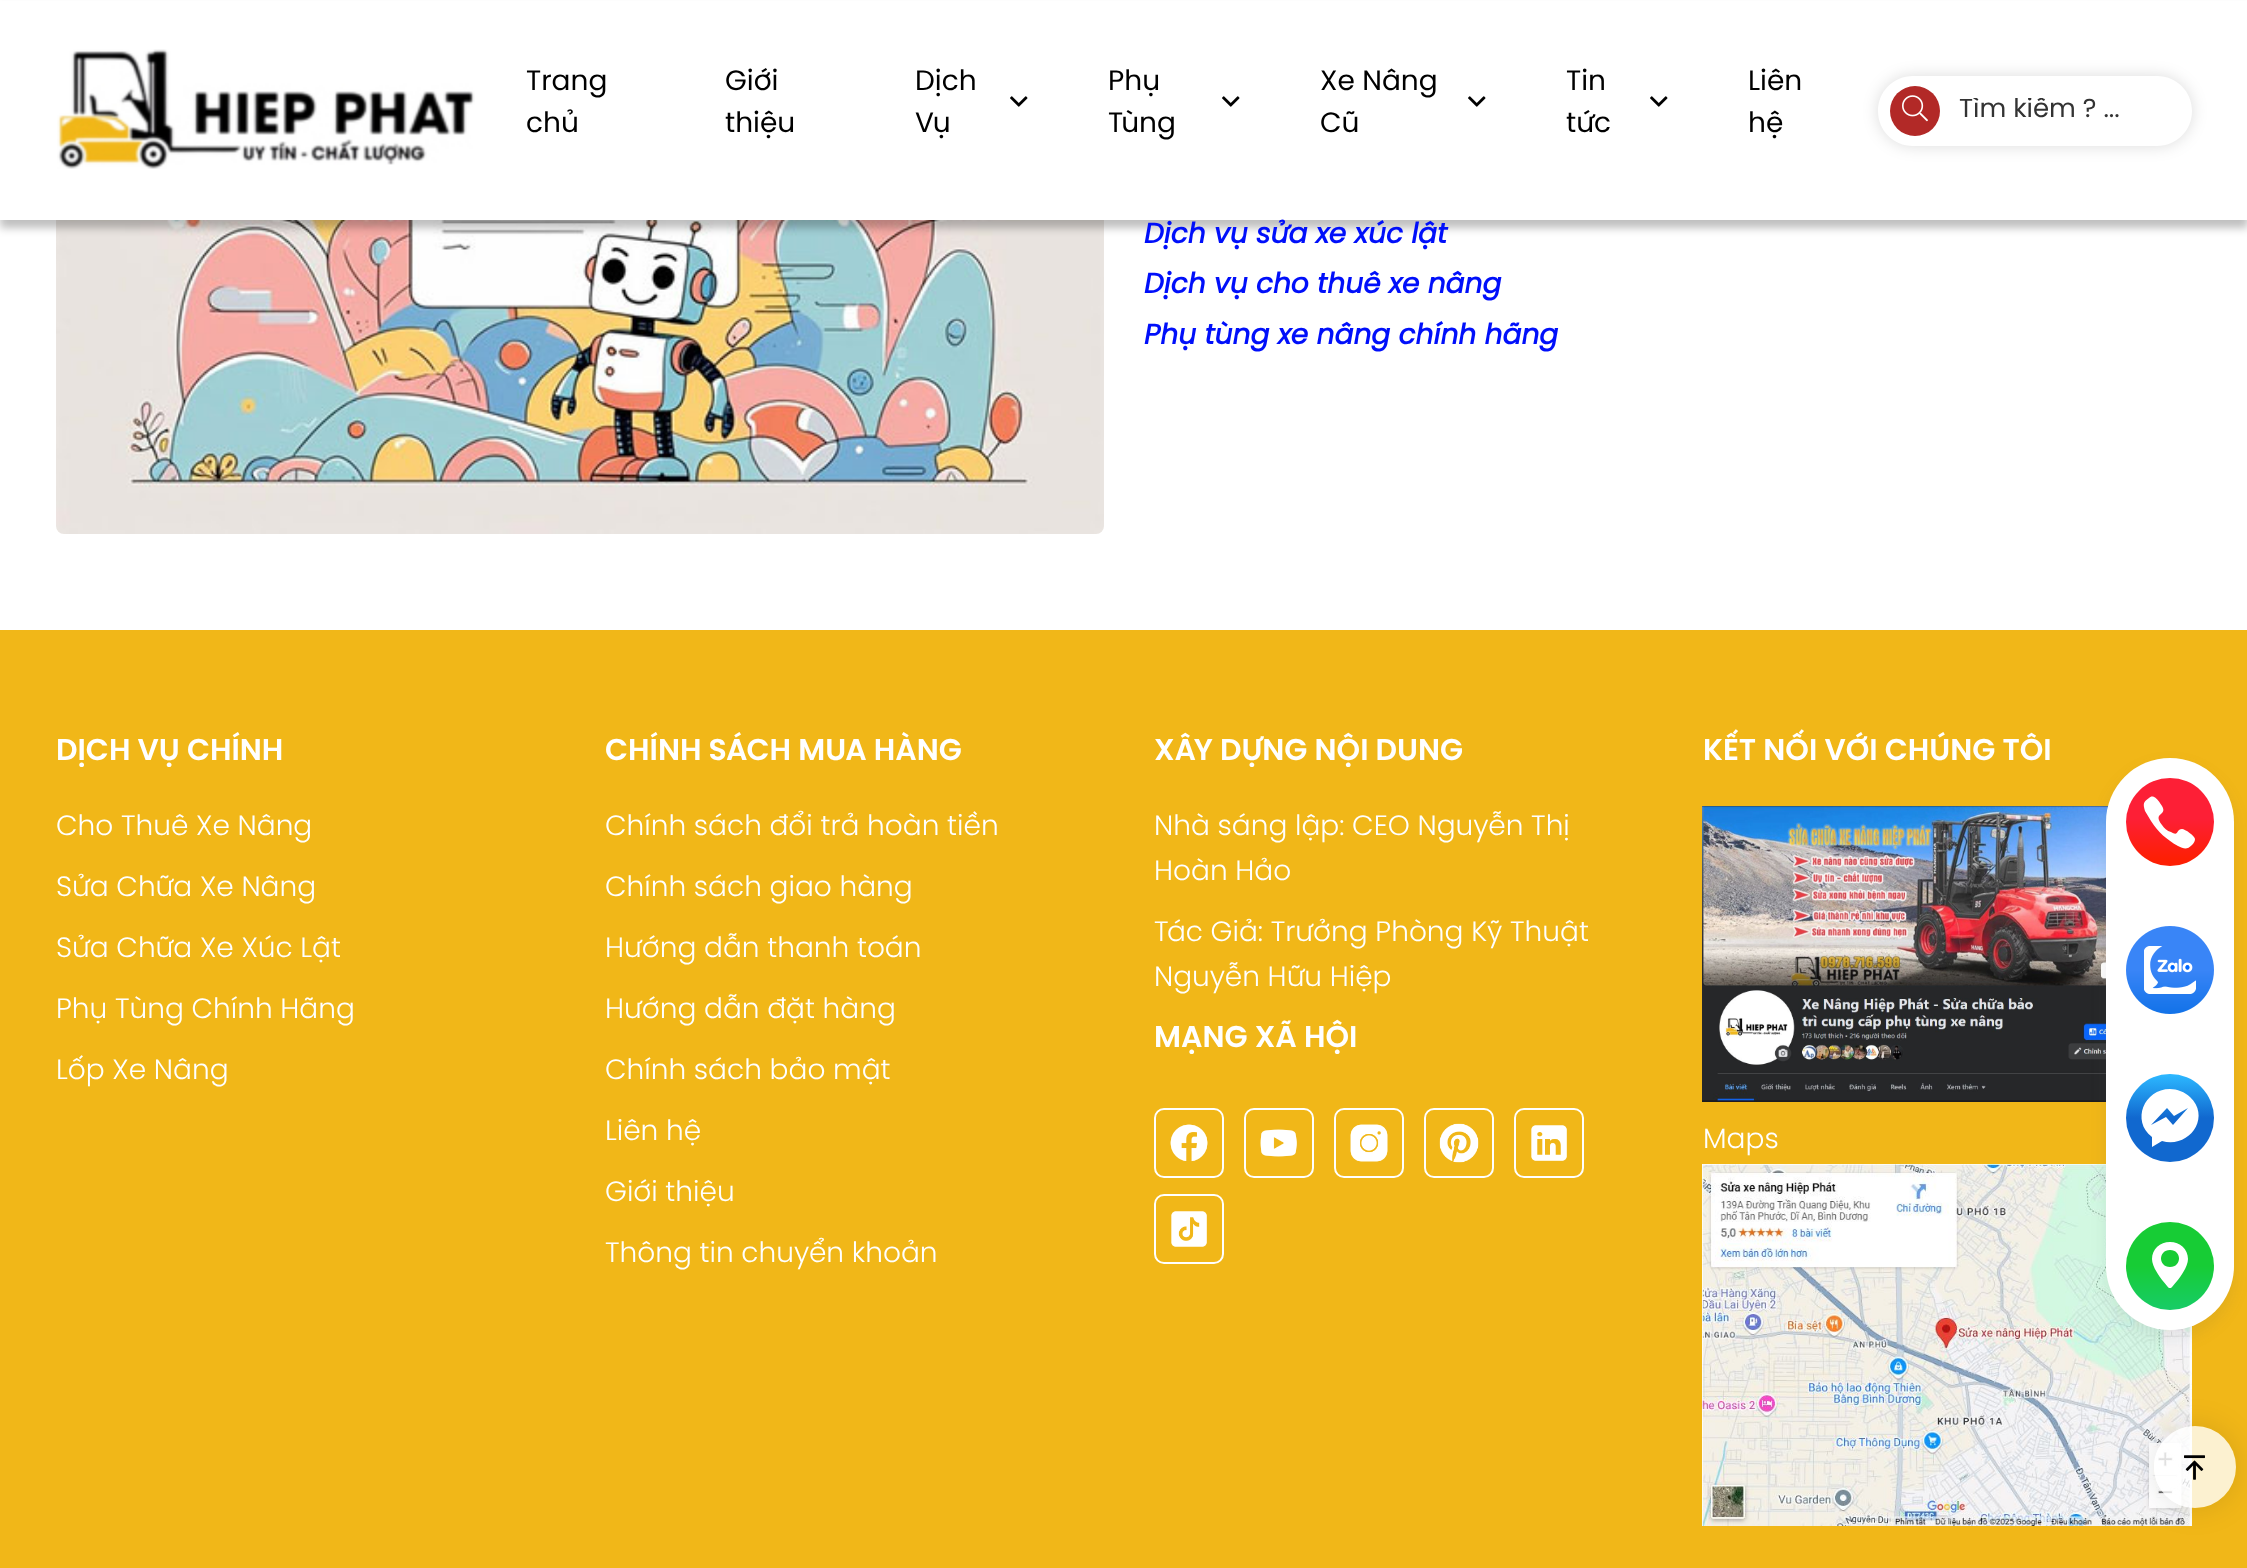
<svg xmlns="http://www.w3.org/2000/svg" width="2247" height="1568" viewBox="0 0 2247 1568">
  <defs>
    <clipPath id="clip1"><path d="M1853 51H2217V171H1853ZM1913 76H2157C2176.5 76 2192 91.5 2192 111C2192 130.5 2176.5 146 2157 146H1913C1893.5 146 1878 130.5 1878 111C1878 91.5 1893.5 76 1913 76Z" clip-rule="evenodd"/></clipPath>
    <linearGradient id="g1" gradientUnits="userSpaceOnUse" x1="2170" y1="778" x2="2170" y2="859"><stop offset="0.5" stop-color="#fd1f36"/><stop offset="1" stop-color="#fd1f04"/></linearGradient>
    <linearGradient id="g2" gradientUnits="userSpaceOnUse" x1="2169" y1="1161" x2="2169" y2="1075"><stop offset="0.5" stop-color="#1168cf"/><stop offset="1" stop-color="#2cb7ff"/></linearGradient>
    <linearGradient id="g3" gradientUnits="userSpaceOnUse" x1="2170" y1="1222" x2="2170" y2="1310"><stop offset="0.5" stop-color="#17cc35"/><stop offset="1" stop-color="#17cc67"/></linearGradient>
    <clipPath id="clip2"><path d="M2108 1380H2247V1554H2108ZM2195 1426C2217.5 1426 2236 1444.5 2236 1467C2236 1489.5 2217.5 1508 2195 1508C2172.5 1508 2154 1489.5 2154 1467C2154 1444.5 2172.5 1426 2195 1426Z" clip-rule="evenodd"/></clipPath>
    <clipPath id="clip3"><path d="M1940 98h220v26H1940z"/></clipPath>
  </defs>
  <rect width="100%" height="100%" fill="#fff"/>
  <image x="56" y="220" width="1048" height="314" href="img/4.png"/>
  <path d="M0 8h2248v220H0z" fill="#00000040" filter="blur(4px)"/>
  <path d="M0 1h2247v219H0z" fill="#fff"/>
  <image x="57" y="49" width="418" height="120" href="img/1.png"/>
  <image x="1010" y="96" width="18" height="11" href="img/2.png"/>
  <image x="1222" y="96" width="18" height="11" href="img/2.png"/>
  <image x="1468" y="96" width="18" height="11" href="img/2.png"/>
  <image x="1650" y="96" width="18" height="11" href="img/2.png"/>
  <g clip-path="url(#clip1)">
    <rect x="1878" y="76" width="314" height="70" rx="35" fill="#00000024" filter="blur(8px)"/>
  </g>
  <circle cx="1915" cy="111" r="25" fill="#b22927"/>
  <image x="1902" y="95" width="26" height="27" href="img/3.png"/>
  <path d="M0 630h2247v938H0z" fill="#f1b718"/>
  <rect x="1155" y="1109" width="68" height="68" rx="9" fill="none" stroke="#fff" stroke-width="2"/>
  <image x="1170" y="1124" width="38" height="38" href="img/5.png"/>
  <rect x="1245" y="1109" width="68" height="68" rx="9" fill="none" stroke="#fff" stroke-width="2"/>
  <image x="1260" y="1129" width="37" height="28" href="img/6.png"/>
  <rect x="1335" y="1109" width="68" height="68" rx="9" fill="none" stroke="#fff" stroke-width="2"/>
  <image x="1350" y="1124" width="38" height="38" href="img/7.png"/>
  <rect x="1425" y="1109" width="68" height="68" rx="9" fill="none" stroke="#fff" stroke-width="2"/>
  <image x="1439" y="1123" width="40" height="40" href="img/8.png"/>
  <rect x="1515" y="1109" width="68" height="68" rx="9" fill="none" stroke="#fff" stroke-width="2"/>
  <image x="1531" y="1125" width="36" height="36" href="img/9.png"/>
  <rect x="1155" y="1195" width="68" height="68" rx="9" fill="none" stroke="#fff" stroke-width="2"/>
  <image x="1171" y="1211" width="36" height="36" href="img/10.png"/>
  <image x="1702" y="806" width="406" height="296" href="img/11.png"/>
  <image x="1702" y="1164" width="490" height="362" href="img/12.png"/>
  <rect x="2106" y="766" width="128" height="572" rx="64" fill="#4e51531a" filter="blur(8px)"/>
  <rect x="2106" y="758" width="128" height="572" rx="64" fill="#fff"/>
  <circle cx="2170" cy="822" r="44" fill="url(#g1)"/>
  <path d="M2154 797C2157 798 2160 803 2162 806C2168 816 2152 812 2162 825C2164 828 2167 831 2171 832C2179 837 2176 829 2182 829C2185 829 2195 836 2195 839C2195 841 2194 843 2192 845C2187 850 2184 849 2178 846C2167 840 2158 832 2151 821L2145 811C2143 804 2143 802 2149 798C2150 797 2152 796 2154 797Z" fill="#fff" fill-rule="evenodd"/>
  <image x="2126" y="926" width="88" height="88" href="img/13.png"/>
  <circle cx="2170" cy="1118" r="44" fill="url(#g2)"/>
  <path d="M2170 1089C2144 1089 2131 1121 2152 1137V1147L2162 1141C2188 1149 2212 1118 2190 1097C2185 1092 2177 1089 2170 1089ZM2173 1125L2166 1117L2151 1125L2167 1108L2174 1116L2188 1108Z" fill="#fff" fill-rule="evenodd"/>
  <circle cx="2170" cy="1266" r="44" fill="url(#g3)"/>
  <path d="M2170 1242C2160 1242 2152 1249 2152 1259C2152 1270 2168 1287 2169 1288C2169 1288 2171 1288 2171 1288C2172 1287 2188 1270 2188 1259C2188 1249 2180 1242 2170 1242ZM2170 1267C2158 1267 2158 1250 2170 1250C2182 1250 2182 1267 2170 1267Z" fill="#fff"/>
  <g clip-path="url(#clip2)">
    <rect x="2154" y="1426" width="82" height="82" rx="41" fill="#0000001c" filter="blur(15px)"/>
  </g>
  <circle cx="2195" cy="1467" r="41" fill="#ffffffcc"/>
  <image x="2184" y="1455" width="21" height="25" href="img/14.png"/>
  <g font-family="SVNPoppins" font-size="28" fill="#000">
    <text x="526" y="90">Trang</text>
    <text x="526" y="132">chủ</text>
    <text x="725" y="90">Giới</text>
    <text x="725" y="132">thiệu</text>
    <text x="915" y="90">Dịch</text>
    <text x="915" y="132">Vụ</text>
    <text x="1108" y="90">Phụ</text>
    <text x="1108" y="132">Tùng</text>
    <text x="1320" y="90">Xe Nâng</text>
    <text x="1320" y="132">Cũ</text>
    <text x="1566" y="90">Tin</text>
    <text x="1566" y="132">tức</text>
    <text x="1748" y="90">Liên</text>
    <text x="1748" y="132">hệ</text>
  </g>
  <g clip-path="url(#clip3)">
    <text x="1959" y="117" font-family="SVNPoppins" font-size="26" fill="#333">Tìm kiếm ? ...</text>
  </g>
  <g font-family="SVNPoppins" font-size="28" font-weight="bold" font-style="italic" fill="#000ffa">
    <text x="1144" y="243">Dịch vụ sửa xe xúc lật</text>
    <text x="1144" y="293">Dịch vụ cho thuê xe nâng</text>
    <text x="1144" y="344">Phụ tùng xe nâng chính hãng</text>
  </g>
  <text x="56" y="760" font-family="SVNPoppins" font-size="30" font-weight="600" fill="#fff">DỊCH VỤ CHÍNH</text>
  <g font-family="SVNPoppins" font-size="28" font-weight="300" fill="#fff">
    <text x="56" y="835">Cho Thuê Xe Nâng</text>
    <text x="56" y="896">Sửa Chữa Xe Nâng</text>
    <text x="56" y="957">Sửa Chữa Xe Xúc Lật</text>
    <text x="56" y="1018">Phụ Tùng Chính Hãng</text>
    <text x="56" y="1079">Lốp Xe Nâng</text>
  </g>
  <text x="605" y="760" font-family="SVNPoppins" font-size="30" font-weight="600" fill="#fff">CHÍNH SÁCH MUA HÀNG</text>
  <g font-family="SVNPoppins" font-size="28" font-weight="300" fill="#fff">
    <text x="605" y="835">Chính sách đổi trả hoàn tiền</text>
    <text x="605" y="896">Chính sách giao hàng</text>
    <text x="605" y="957">Hướng dẫn thanh toán</text>
    <text x="605" y="1018">Hướng dẫn đặt hàng</text>
    <text x="605" y="1079">Chính sách bảo mật</text>
    <text x="605" y="1140">Liên hệ</text>
    <text x="605" y="1201">Giới thiệu</text>
    <text x="605" y="1262">Thông tin chuyển khoản</text>
  </g>
  <text x="1154" y="760" font-family="SVNPoppins" font-size="30" font-weight="600" fill="#fff">XÂY DỰNG NỘI DUNG</text>
  <g font-family="SVNPoppins" font-size="28" font-weight="300" fill="#fff">
    <text x="1154" y="835">Nhà sáng lập: CEO Nguyễn Thị</text>
    <text x="1154" y="880">Hoàn Hảo</text>
    <text x="1154" y="941">Tác Giả: Trưởng Phòng Kỹ Thuật</text>
    <text x="1154" y="986">Nguyễn Hữu Hiệp</text>
  </g>
  <g font-family="SVNPoppins" font-size="30" font-weight="600" fill="#fff">
    <text x="1154" y="1047">MẠNG XÃ HỘI</text>
    <text x="1703" y="760">KẾT NỐI VỚI CHÚNG TÔI</text>
  </g>
  <text x="1703" y="1148" font-family="SVNPoppins" font-size="28" font-weight="300" fill="#fff">Maps</text>
</svg>
